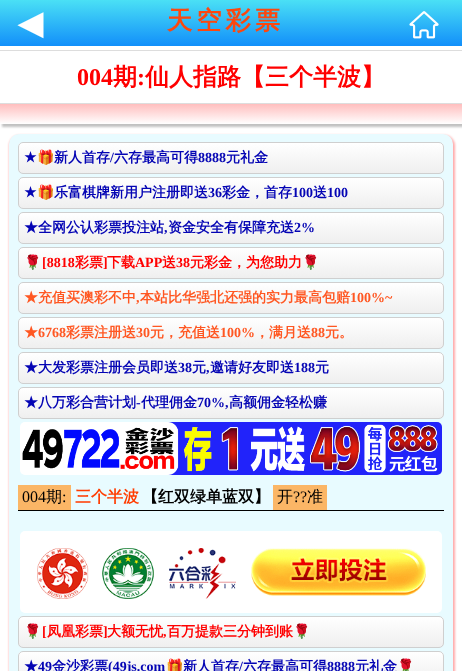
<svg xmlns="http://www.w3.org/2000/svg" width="462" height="671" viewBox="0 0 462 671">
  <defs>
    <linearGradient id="g1" gradientUnits="userSpaceOnUse" x1="231" y1="0" x2="231" y2="46"><stop offset="0" stop-color="#4ae0f5"/><stop offset="1" stop-color="#128ffa"/></linearGradient>
    <linearGradient id="g2" gradientUnits="userSpaceOnUse" x1="231" y1="104" x2="231" y2="124"><stop offset="0" stop-color="#ffbebe"/><stop offset="1" stop-color="#fff"/></linearGradient>
    <clipPath id="clip1"><rect x="18" y="142" width="426" height="32" rx="5"/></clipPath>
    <linearGradient id="g3" gradientUnits="userSpaceOnUse" x1="231" y1="143" x2="231" y2="173"><stop offset="0" stop-color="#fff"/><stop offset="1" stop-color="#efefef"/></linearGradient>
    <clipPath id="clip2"><rect x="18" y="177" width="426" height="32" rx="5"/></clipPath>
    <linearGradient id="g4" gradientUnits="userSpaceOnUse" x1="231" y1="178" x2="231" y2="208"><stop offset="0" stop-color="#fff"/><stop offset="1" stop-color="#efefef"/></linearGradient>
    <clipPath id="clip3"><rect x="18" y="212" width="426" height="32" rx="5"/></clipPath>
    <linearGradient id="g5" gradientUnits="userSpaceOnUse" x1="231" y1="213" x2="231" y2="243"><stop offset="0" stop-color="#fff"/><stop offset="1" stop-color="#efefef"/></linearGradient>
    <clipPath id="clip4"><rect x="18" y="247" width="426" height="32" rx="5"/></clipPath>
    <linearGradient id="g6" gradientUnits="userSpaceOnUse" x1="231" y1="248" x2="231" y2="278"><stop offset="0" stop-color="#fff"/><stop offset="1" stop-color="#efefef"/></linearGradient>
    <clipPath id="clip5"><rect x="18" y="282" width="426" height="32" rx="5"/></clipPath>
    <linearGradient id="g7" gradientUnits="userSpaceOnUse" x1="231" y1="283" x2="231" y2="313"><stop offset="0" stop-color="#fff"/><stop offset="1" stop-color="#efefef"/></linearGradient>
    <clipPath id="clip6"><rect x="18" y="317" width="426" height="32" rx="5"/></clipPath>
    <linearGradient id="g8" gradientUnits="userSpaceOnUse" x1="231" y1="318" x2="231" y2="348"><stop offset="0" stop-color="#fff"/><stop offset="1" stop-color="#efefef"/></linearGradient>
    <clipPath id="clip7"><rect x="18" y="352" width="426" height="32" rx="5"/></clipPath>
    <linearGradient id="g9" gradientUnits="userSpaceOnUse" x1="231" y1="353" x2="231" y2="383"><stop offset="0" stop-color="#fff"/><stop offset="1" stop-color="#efefef"/></linearGradient>
    <clipPath id="clip8"><rect x="18" y="387" width="426" height="32" rx="5"/></clipPath>
    <linearGradient id="g10" gradientUnits="userSpaceOnUse" x1="231" y1="388" x2="231" y2="418"><stop offset="0" stop-color="#fff"/><stop offset="1" stop-color="#efefef"/></linearGradient>
    <clipPath id="clip9"><rect x="18" y="616" width="426" height="32" rx="5"/></clipPath>
    <linearGradient id="g11" gradientUnits="userSpaceOnUse" x1="231" y1="617" x2="231" y2="647"><stop offset="0" stop-color="#fff"/><stop offset="1" stop-color="#efefef"/></linearGradient>
    <clipPath id="clip10"><rect x="18" y="651" width="426" height="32" rx="5"/></clipPath>
    <linearGradient id="g12" gradientUnits="userSpaceOnUse" x1="231" y1="652" x2="231" y2="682"><stop offset="0" stop-color="#fff"/><stop offset="1" stop-color="#efefef"/></linearGradient>
  </defs>
  <rect width="100%" height="100%" fill="#fff"/>
  <path d="M0 0h462v46H0z" fill="url(#g1)"/>
  <image x="409" y="11" width="30" height="28" href="img/1.png"/>
  <path d="M0 50h462v1H0z" fill="#ddd"/>
  <path d="M0 103h462v1H0z" fill="#ddd"/>
  <path d="M2 107h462v20H2z" fill="#c1c1c1" filter="blur(1px)"/>
  <path d="M0 104h462v20H0z" fill="url(#g2)"/>
  <rect x="9" y="135" width="446" height="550" rx="11" fill="#faa" filter="blur(1px)"/>
  <rect x="9" y="134" width="444" height="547" rx="10" fill="#e8fbff"/>
  <g clip-path="url(#clip1)">
    <path d="M18 143h426v30H18z" fill="url(#g3)"/>
  </g>
  <rect x="18.5" y="142.5" width="425" height="31" rx="4.5" fill="none" stroke="#cfcfcf"/>
  <g clip-path="url(#clip2)">
    <path d="M18 178h426v30H18z" fill="url(#g4)"/>
  </g>
  <rect x="18.5" y="177.5" width="425" height="31" rx="4.5" fill="none" stroke="#cfcfcf"/>
  <g clip-path="url(#clip3)">
    <path d="M18 213h426v30H18z" fill="url(#g5)"/>
  </g>
  <rect x="18.5" y="212.5" width="425" height="31" rx="4.5" fill="none" stroke="#cfcfcf"/>
  <g clip-path="url(#clip4)">
    <path d="M18 248h426v30H18z" fill="url(#g6)"/>
  </g>
  <rect x="18.5" y="247.5" width="425" height="31" rx="4.5" fill="none" stroke="#cfcfcf"/>
  <g clip-path="url(#clip5)">
    <path d="M18 283h426v30H18z" fill="url(#g7)"/>
  </g>
  <rect x="18.5" y="282.5" width="425" height="31" rx="4.5" fill="none" stroke="#cfcfcf"/>
  <g clip-path="url(#clip6)">
    <path d="M18 318h426v30H18z" fill="url(#g8)"/>
  </g>
  <rect x="18.5" y="317.5" width="425" height="31" rx="4.5" fill="none" stroke="#cfcfcf"/>
  <g clip-path="url(#clip7)">
    <path d="M18 353h426v30H18z" fill="url(#g9)"/>
  </g>
  <rect x="18.5" y="352.5" width="425" height="31" rx="4.5" fill="none" stroke="#cfcfcf"/>
  <g clip-path="url(#clip8)">
    <path d="M18 388h426v30H18z" fill="url(#g10)"/>
  </g>
  <rect x="18.5" y="387.5" width="425" height="31" rx="4.5" fill="none" stroke="#cfcfcf"/>
  <image x="20" y="422" width="422" height="53" href="img/2.png"/>
  <path d="M18 510h426v1H18z" fill="#000"/>
  <path d="M18 485h53v25H18z" fill="#fbb666"/>
  <path d="M273 485h54v25H273z" fill="#fbb666"/>
  <image x="20" y="531" width="422" height="82" href="img/3.png"/>
  <g clip-path="url(#clip9)">
    <path d="M18 617h426v30H18z" fill="url(#g11)"/>
  </g>
  <rect x="18.5" y="616.5" width="425" height="31" rx="4.5" fill="none" stroke="#cfcfcf"/>
  <g clip-path="url(#clip10)">
    <path d="M18 652h426v19H18z" fill="url(#g12)"/>
  </g>
  <rect x="18.5" y="651.5" width="425" height="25" rx="4.5" fill="none" stroke="#cfcfcf"/>
  <text x="18" y="34" font-family="DejaVu Sans" font-size="32" font-weight="bold" fill="#fff">◀</text>
  <text x="167" y="29" font-family="WenQuanYi Zen Hei" font-size="25.25" font-weight="bold" letter-spacing="4" fill="#fd470e">天空彩票</text>
  <text x="77" y="85" font-family="Liberation Serif" font-size="24" font-weight="bold" fill="#f00">004</text>
  <text x="113" y="85" font-family="WenQuanYi Zen Hei" font-size="24" font-weight="bold" fill="#f00">期</text>
  <text x="137" y="85" font-family="Liberation Serif" font-size="24" font-weight="bold" fill="#f00">:</text>
  <text x="145" y="85" font-family="WenQuanYi Zen Hei" font-size="24" font-weight="bold" fill="#f00">仙人指路【三个半波】</text>
  <text x="24" y="162" font-family="DejaVu Sans" font-size="14" font-weight="bold" fill="#0404b4">★</text>
  <text x="37" y="162" font-family="Noto Color Emoji" font-size="14" font-weight="bold" fill="#0404b4">🎁</text>
  <text x="54" y="162" font-family="WenQuanYi Zen Hei" font-size="14" font-weight="bold" fill="#0404b4">新人首存</text>
  <text x="110" y="162" font-family="Liberation Serif" font-size="14" font-weight="bold" fill="#0404b4">/</text>
  <text x="114" y="162" font-family="WenQuanYi Zen Hei" font-size="14" font-weight="bold" fill="#0404b4">六存最高可得</text>
  <text x="198" y="162" font-family="Liberation Serif" font-size="14" font-weight="bold" fill="#0404b4">8888</text>
  <text x="226" y="162" font-family="WenQuanYi Zen Hei" font-size="14" font-weight="bold" fill="#0404b4">元礼金</text>
  <text x="24" y="197" font-family="DejaVu Sans" font-size="14" font-weight="bold" fill="#0404b4">★</text>
  <text x="37" y="197" font-family="Noto Color Emoji" font-size="14" font-weight="bold" fill="#0404b4">🎁</text>
  <text x="54" y="197" font-family="WenQuanYi Zen Hei" font-size="14" font-weight="bold" fill="#0404b4">乐富棋牌新用户注册即送</text>
  <text x="208" y="197" font-family="Liberation Serif" font-size="14" font-weight="bold" fill="#0404b4">36</text>
  <text x="222" y="197" font-family="WenQuanYi Zen Hei" font-size="14" font-weight="bold" fill="#0404b4">彩金，首存</text>
  <text x="292" y="197" font-family="Liberation Serif" font-size="14" font-weight="bold" fill="#0404b4">100</text>
  <text x="313" y="197" font-family="WenQuanYi Zen Hei" font-size="14" font-weight="bold" fill="#0404b4">送</text>
  <text x="327" y="197" font-family="Liberation Serif" font-size="14" font-weight="bold" fill="#0404b4">100</text>
  <text x="24" y="232" font-family="WenQuanYi Zen Hei" font-size="14" font-weight="bold" fill="#0404b4">★全网公认彩票投注站</text>
  <text x="164" y="232" font-family="Liberation Serif" font-size="14" font-weight="bold" fill="#0404b4">,</text>
  <text x="168" y="232" font-family="WenQuanYi Zen Hei" font-size="14" font-weight="bold" fill="#0404b4">资金安全有保障充送</text>
  <text x="294" y="232" font-family="Liberation Serif" font-size="14" font-weight="bold" fill="#0404b4">2%</text>
  <text x="24" y="267" font-family="Noto Color Emoji" font-size="14" font-weight="bold" fill="#f00">🌹</text>
  <text x="42" y="267" font-family="Liberation Serif" font-size="14" font-weight="bold" fill="#f00">[8818</text>
  <text x="75" y="267" font-family="WenQuanYi Zen Hei" font-size="14" font-weight="bold" fill="#f00">彩票</text>
  <text x="103" y="267" font-family="Liberation Serif" font-size="14" font-weight="bold" fill="#f00">]</text>
  <text x="107" y="267" font-family="WenQuanYi Zen Hei" font-size="14" font-weight="bold" fill="#f00">下载</text>
  <text x="135" y="267" font-family="Liberation Serif" font-size="14" font-weight="bold" fill="#f00">APP</text>
  <text x="162" y="267" font-family="WenQuanYi Zen Hei" font-size="14" font-weight="bold" fill="#f00">送</text>
  <text x="176" y="267" font-family="Liberation Serif" font-size="14" font-weight="bold" fill="#f00">38</text>
  <text x="190" y="267" font-family="WenQuanYi Zen Hei" font-size="14" font-weight="bold" fill="#f00">元彩金，为您助力</text>
  <text x="302" y="267" font-family="Noto Color Emoji" font-size="14" font-weight="bold" fill="#f00">🌹</text>
  <text x="24" y="302" font-family="WenQuanYi Zen Hei" font-size="14" font-weight="bold" fill="#ff5722">★充值买澳彩不中</text>
  <text x="136" y="302" font-family="Liberation Serif" font-size="14" font-weight="bold" fill="#ff5722">,</text>
  <text x="140" y="302" font-family="WenQuanYi Zen Hei" font-size="14" font-weight="bold" fill="#ff5722">本站比华强北还强的实力最高包赔</text>
  <text x="350" y="302" font-family="Liberation Serif" font-size="14" font-weight="bold" fill="#ff5722">100%~</text>
  <text x="24" y="337" font-family="WenQuanYi Zen Hei" font-size="14" font-weight="bold" fill="#ff5722">★</text>
  <text x="38" y="337" font-family="Liberation Serif" font-size="14" font-weight="bold" fill="#ff5722">6768</text>
  <text x="66" y="337" font-family="WenQuanYi Zen Hei" font-size="14" font-weight="bold" fill="#ff5722">彩票注册送</text>
  <text x="136" y="337" font-family="Liberation Serif" font-size="14" font-weight="bold" fill="#ff5722">30</text>
  <text x="150" y="337" font-family="WenQuanYi Zen Hei" font-size="14" font-weight="bold" fill="#ff5722">元，充值送</text>
  <text x="220" y="337" font-family="Liberation Serif" font-size="14" font-weight="bold" fill="#ff5722">100%</text>
  <text x="255" y="337" font-family="WenQuanYi Zen Hei" font-size="14" font-weight="bold" fill="#ff5722">，满月送</text>
  <text x="311" y="337" font-family="Liberation Serif" font-size="14" font-weight="bold" fill="#ff5722">88</text>
  <text x="325" y="337" font-family="WenQuanYi Zen Hei" font-size="14" font-weight="bold" fill="#ff5722">元。</text>
  <text x="24" y="372" font-family="WenQuanYi Zen Hei" font-size="14" font-weight="bold" fill="#0404b4">★大发彩票注册会员即送</text>
  <text x="178" y="372" font-family="Liberation Serif" font-size="14" font-weight="bold" fill="#0404b4">38</text>
  <text x="192" y="372" font-family="WenQuanYi Zen Hei" font-size="14" font-weight="bold" fill="#0404b4">元</text>
  <text x="206" y="372" font-family="Liberation Serif" font-size="14" font-weight="bold" fill="#0404b4">,</text>
  <text x="210" y="372" font-family="WenQuanYi Zen Hei" font-size="14" font-weight="bold" fill="#0404b4">邀请好友即送</text>
  <text x="294" y="372" font-family="Liberation Serif" font-size="14" font-weight="bold" fill="#0404b4">188</text>
  <g font-family="WenQuanYi Zen Hei" font-size="14" font-weight="bold" fill="#0404b4">
    <text x="315" y="372">元</text>
    <text x="24" y="407">★八万彩合营计划</text>
  </g>
  <text x="136" y="407" font-family="Liberation Serif" font-size="14" font-weight="bold" fill="#0404b4">-</text>
  <text x="141" y="407" font-family="WenQuanYi Zen Hei" font-size="14" font-weight="bold" fill="#0404b4">代理佣金</text>
  <text x="197" y="407" font-family="Liberation Serif" font-size="14" font-weight="bold" fill="#0404b4">70%,</text>
  <text x="229" y="407" font-family="WenQuanYi Zen Hei" font-size="14" font-weight="bold" fill="#0404b4">高额佣金轻松赚</text>
  <text x="22" y="502" font-family="Liberation Serif" font-size="16" fill="#000">004</text>
  <text x="46" y="502" font-family="WenQuanYi Zen Hei" font-size="16" font-weight="500" fill="#000">期</text>
  <text x="62" y="502" font-family="Liberation Serif" font-size="16" fill="#000">:</text>
  <text x="75" y="502" font-family="WenQuanYi Zen Hei" font-size="16" font-weight="bold" fill="#ff3c00">三个半波</text>
  <text x="142" y="502" font-family="WenQuanYi Zen Hei" font-size="16" font-weight="bold" fill="#000">【红双绿单蓝双】</text>
  <text x="277" y="502" font-family="WenQuanYi Zen Hei" font-size="16" font-weight="500" fill="#000">开</text>
  <text x="293" y="502" font-family="Liberation Serif" font-size="16" fill="#000">??</text>
  <text x="307" y="502" font-family="WenQuanYi Zen Hei" font-size="16" font-weight="500" fill="#000">准</text>
  <text x="24" y="636" font-family="Noto Color Emoji" font-size="14" font-weight="bold" fill="#f00">🌹</text>
  <text x="42" y="636" font-family="Liberation Serif" font-size="14" font-weight="bold" fill="#f00">[</text>
  <text x="47" y="636" font-family="WenQuanYi Zen Hei" font-size="14" font-weight="bold" fill="#f00">凤凰彩票</text>
  <text x="103" y="636" font-family="Liberation Serif" font-size="14" font-weight="bold" fill="#f00">]</text>
  <text x="107" y="636" font-family="WenQuanYi Zen Hei" font-size="14" font-weight="bold" fill="#f00">大额无忧</text>
  <text x="163" y="636" font-family="Liberation Serif" font-size="14" font-weight="bold" fill="#f00">,</text>
  <text x="167" y="636" font-family="WenQuanYi Zen Hei" font-size="14" font-weight="bold" fill="#f00">百万提款三分钟到账</text>
  <text x="293" y="636" font-family="Noto Color Emoji" font-size="14" font-weight="bold" fill="#f00">🌹</text>
  <text x="24" y="671" font-family="WenQuanYi Zen Hei" font-size="14" font-weight="bold" fill="#0404b4">★</text>
  <text x="38" y="671" font-family="Liberation Serif" font-size="14" font-weight="bold" fill="#0404b4">49</text>
  <text x="52" y="671" font-family="WenQuanYi Zen Hei" font-size="14" font-weight="bold" fill="#0404b4">金沙彩票</text>
  <text x="108" y="671" font-family="Liberation Serif" font-size="14" font-weight="bold" fill="#0404b4">(49js.com</text>
  <text x="166" y="671" font-family="Noto Color Emoji" font-size="14" font-weight="bold" fill="#0404b4">🎁</text>
  <text x="183" y="671" font-family="WenQuanYi Zen Hei" font-size="14" font-weight="bold" fill="#0404b4">新人首存</text>
  <text x="239" y="671" font-family="Liberation Serif" font-size="14" font-weight="bold" fill="#0404b4">/</text>
  <text x="243" y="671" font-family="WenQuanYi Zen Hei" font-size="14" font-weight="bold" fill="#0404b4">六存最高可得</text>
  <text x="327" y="671" font-family="Liberation Serif" font-size="14" font-weight="bold" fill="#0404b4">8888</text>
  <text x="355" y="671" font-family="WenQuanYi Zen Hei" font-size="14" font-weight="bold" fill="#0404b4">元礼金</text>
  <text x="397" y="671" font-family="Noto Color Emoji" font-size="14" font-weight="bold" fill="#0404b4">🌹</text>
</svg>
